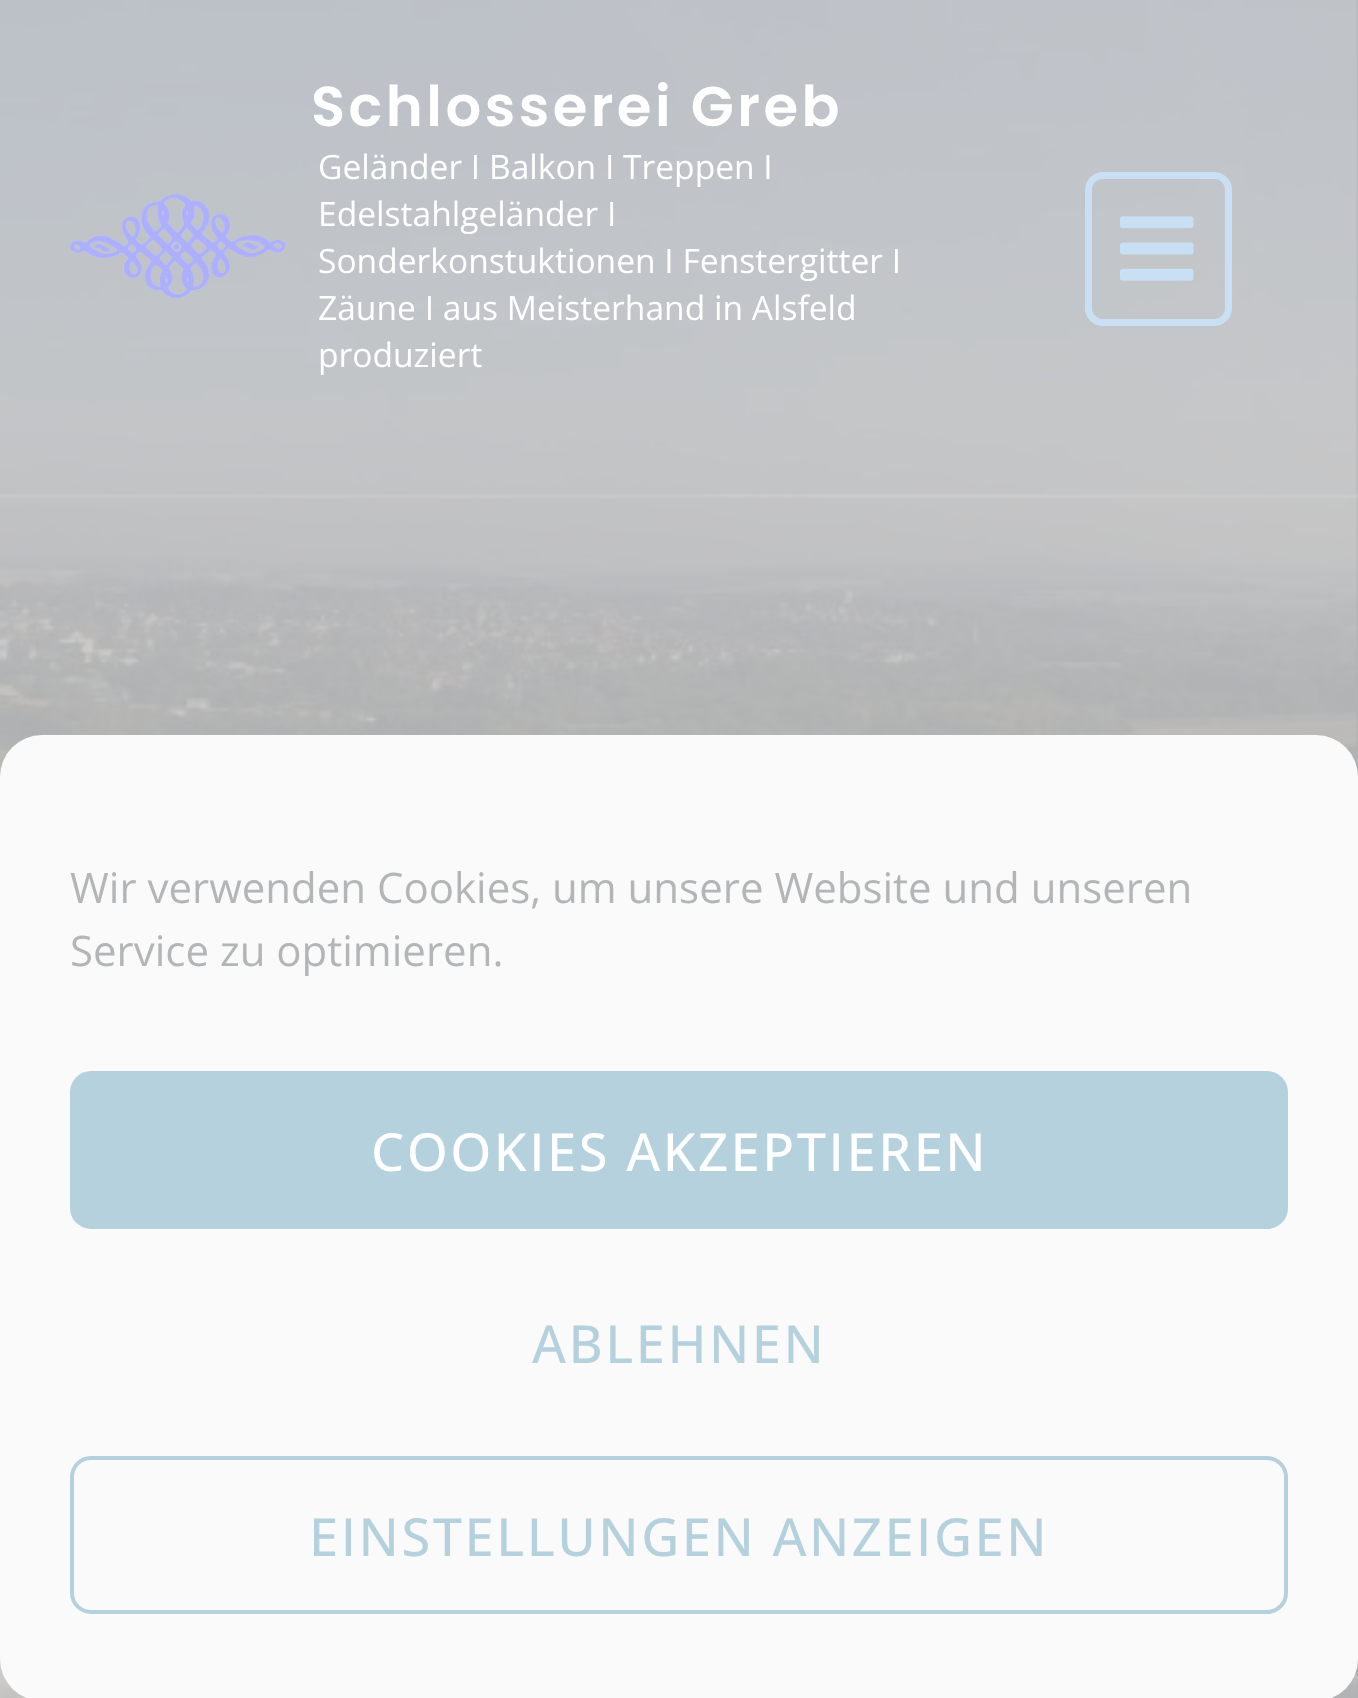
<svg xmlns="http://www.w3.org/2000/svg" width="1358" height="1698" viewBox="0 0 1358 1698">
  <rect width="100%" height="100%" fill="#aeafb1"/>
  <image x="0" y="0" width="1358" height="1698" href="img/1.png"/>
  <path d="M0 494h1358v4H0z" fill="#ffffff1a"/>
  <image x="70" y="193" width="216" height="106" href="img/2.png"/>
  <rect x="1088.5" y="175.5" width="140" height="147" rx="14.5" fill="none" stroke="#c9e0f4" stroke-width="7"/>
  <image x="1120" y="216" width="74" height="65" href="img/3.png"/>
  <rect x="1113" y="1442" width="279" height="210" rx="7" fill="#d5d5d5" filter="blur(9px)"/>
  <rect y="735" width="1358" height="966" rx="42" fill="#fafafa"/>
  <rect x="72" y="1073" width="1214" height="154" rx="19" fill="#b6d1de" stroke="#b6d1de" stroke-width="4"/>
  <rect x="72" y="1458" width="1214" height="154" rx="19" fill="none" stroke="#b6d1de" stroke-width="4"/>
  <text x="311" y="126" font-family="Poppins" font-size="56" font-weight="600" letter-spacing="3.5" fill="#fff">Schlosserei Greb</text>
  <g font-family="Open Sans" font-size="33.6" fill="#fff">
    <text x="318" y="179">Geländer I Balkon I Treppen I</text>
    <text x="318" y="226">Edelstahlgeländer I</text>
    <text x="318" y="273">Sonderkonstuktionen I Fenstergitter I</text>
    <text x="318" y="320">Zäune I aus Meisterhand in Alsfeld</text>
    <text x="318" y="367">produziert</text>
  </g>
  <g font-family="Open Sans" font-size="42" fill="#b3b5b6">
    <text x="70" y="903">Wir verwenden Cookies, um unsere Website und unseren</text>
    <text x="70" y="966">Service zu optimieren.</text>
  </g>
  <text x="371" y="1171" font-family="Open Sans" font-size="52.5" font-weight="500" letter-spacing="2.5" fill="#fff">COOKIES AKZEPTIEREN</text>
  <g font-family="Open Sans" font-size="52.5" font-weight="500" letter-spacing="2.5" fill="#b6d1de">
    <text x="532" y="1363">ABLEHNEN</text>
    <text x="309" y="1556">EINSTELLUNGEN ANZEIGEN</text>
  </g>
</svg>
